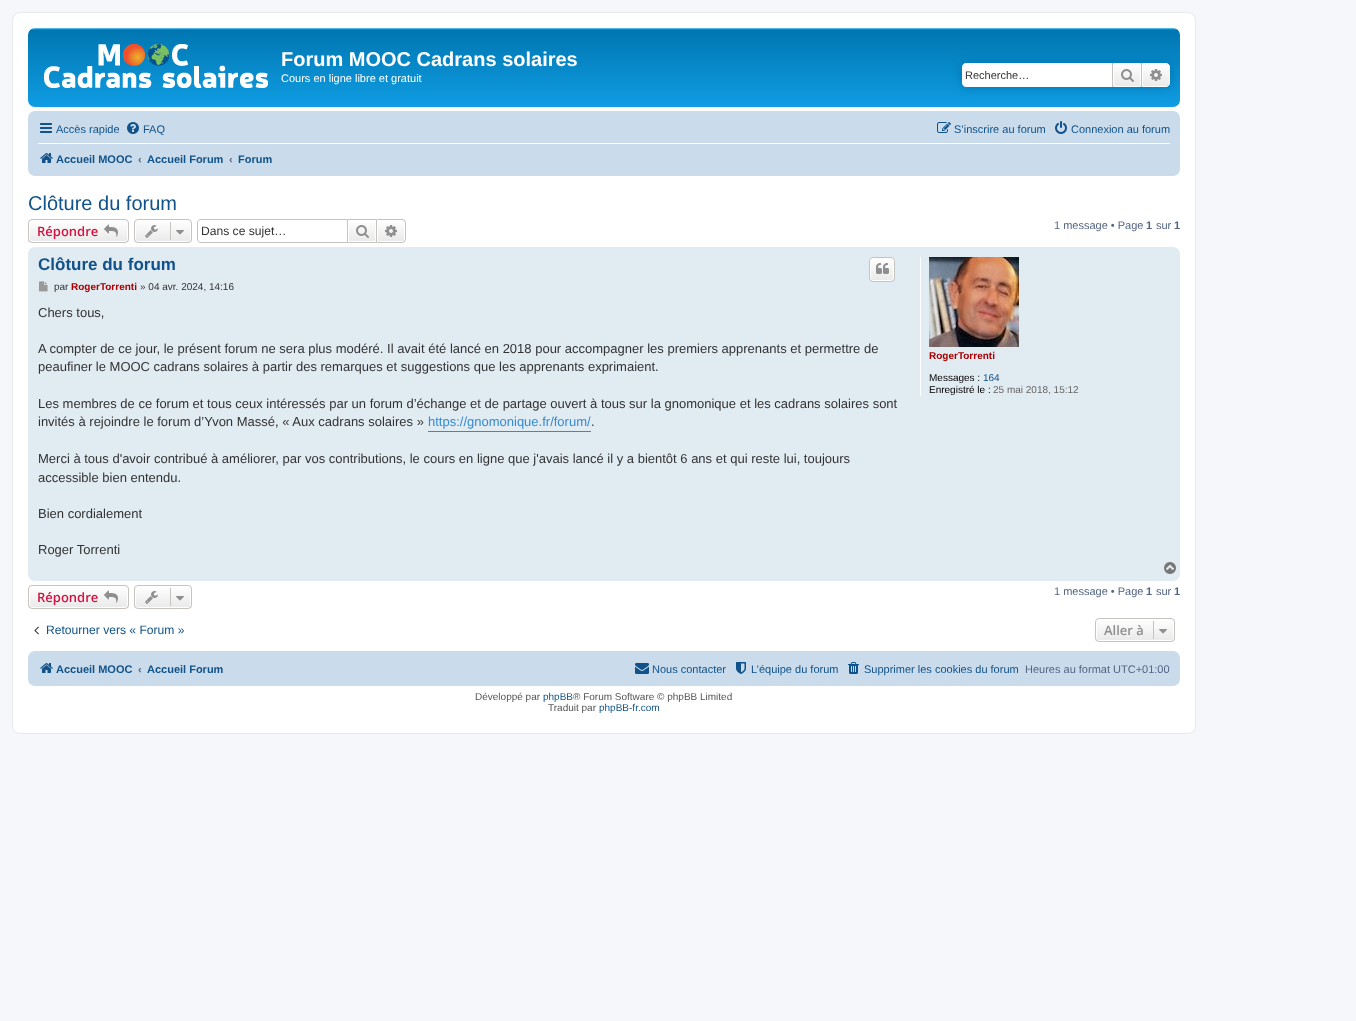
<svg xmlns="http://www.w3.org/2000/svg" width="1356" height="1021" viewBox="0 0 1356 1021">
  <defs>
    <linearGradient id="g1" gradientUnits="userSpaceOnUse" x1="604" y1="28" x2="604" y2="120"><stop offset="0" stop-color="#6aceff"/><stop offset="0.02" stop-color="#0076b1"/><stop offset="1" stop-color="#12a3eb"/></linearGradient>
    <linearGradient id="g2" gradientUnits="userSpaceOnUse" x1="1127" y1="63" x2="1127" y2="87"><stop offset="0" stop-color="#fff"/><stop offset="1" stop-color="#e9e9e9"/></linearGradient>
    <linearGradient id="g3" gradientUnits="userSpaceOnUse" x1="1156" y1="63" x2="1156" y2="87"><stop offset="0" stop-color="#fff"/><stop offset="1" stop-color="#e9e9e9"/></linearGradient>
    <clipPath id="clip1"><rect x="28" y="219" width="101" height="24" rx="4"/></clipPath>
    <linearGradient id="g4" gradientUnits="userSpaceOnUse" x1="79" y1="220" x2="79" y2="242"><stop offset="0" stop-color="#fff"/><stop offset="1" stop-color="#e9e9e9"/></linearGradient>
    <clipPath id="clip2"><rect x="134" y="219" width="58" height="24" rx="4"/></clipPath>
    <linearGradient id="g5" gradientUnits="userSpaceOnUse" x1="163" y1="220" x2="163" y2="242"><stop offset="0" stop-color="#fff"/><stop offset="1" stop-color="#e9e9e9"/></linearGradient>
    <linearGradient id="g6" gradientUnits="userSpaceOnUse" x1="362" y1="220" x2="362" y2="242"><stop offset="0" stop-color="#fff"/><stop offset="1" stop-color="#e9e9e9"/></linearGradient>
    <linearGradient id="g7" gradientUnits="userSpaceOnUse" x1="391" y1="220" x2="391" y2="242"><stop offset="0" stop-color="#fff"/><stop offset="1" stop-color="#e9e9e9"/></linearGradient>
    <clipPath id="clip3"><rect x="869" y="257" width="26" height="25" rx="4"/></clipPath>
    <linearGradient id="g8" gradientUnits="userSpaceOnUse" x1="882" y1="258" x2="882" y2="281"><stop offset="0" stop-color="#fff"/><stop offset="1" stop-color="#e9e9e9"/></linearGradient>
    <clipPath id="clip4"><rect x="28" y="585" width="101" height="24" rx="4"/></clipPath>
    <linearGradient id="g9" gradientUnits="userSpaceOnUse" x1="79" y1="586" x2="79" y2="608"><stop offset="0" stop-color="#fff"/><stop offset="1" stop-color="#e9e9e9"/></linearGradient>
    <clipPath id="clip5"><rect x="134" y="585" width="58" height="24" rx="4"/></clipPath>
    <linearGradient id="g10" gradientUnits="userSpaceOnUse" x1="163" y1="586" x2="163" y2="608"><stop offset="0" stop-color="#fff"/><stop offset="1" stop-color="#e9e9e9"/></linearGradient>
    <clipPath id="clip6"><rect x="1095" y="618" width="80" height="24" rx="4"/></clipPath>
    <linearGradient id="g11" gradientUnits="userSpaceOnUse" x1="1135" y1="619" x2="1135" y2="641"><stop offset="0" stop-color="#fff"/><stop offset="1" stop-color="#e9e9e9"/></linearGradient>
  </defs>
  <rect width="100%" height="100%" fill="#f5f7fa"/>
  <rect x="12.5" y="12.5" width="1183" height="721" rx="7.5" fill="#fff" stroke="#e6e9ed"/>
  <rect x="28" y="28" width="1152" height="79" rx="7" fill="url(#g1)"/>
  <image x="44" y="44" width="224" height="44" href="img/1.png"/>
  <rect x="962" y="63" width="208" height="24" rx="4" fill="#0075b0" filter="blur(5px)"/>
  <path d="M966 63H1112V87H966C964 87 962 85 962 83V67C962 65 964 63 966 63Z" fill="#fff"/>
  <path d="M1114 64h26v22H1114z" fill="url(#g2)"/>
  <path d="M1113.5 63.5h27v23H1113.5z" fill="none" stroke="#fff"/>
  <path d="M1141 63h1v24H1141z" fill="#c7c3bf"/>
  <path d="M1112 63h1v24H1112z" fill="#c7c3bf"/>
  <image x="1121" y="69" width="13" height="13" href="img/2.png"/>
  <path d="M1142.5 63.5H1166C1168 63.5 1169.5 65 1169.5 67V83C1169.5 85 1168 86.5 1166 86.5H1142.5Z" fill="url(#g3)" stroke="#fff"/>
  <image x="1150" y="69" width="12" height="12" href="img/3.png"/>
  <rect x="28" y="111" width="1152" height="65" rx="7" fill="#cadceb"/>
  <image x="40" y="123" width="12" height="10" href="img/4.png"/>
  <image x="127" y="122" width="12" height="12" href="img/5.png"/>
  <image x="937" y="122" width="14" height="11" href="img/6.png"/>
  <image x="1055" y="121" width="12" height="13" href="img/7.png"/>
  <path d="M38 143h1132v1H38z" fill="#fff"/>
  <image x="40" y="153" width="13" height="10" href="img/8.png"/>
  <g clip-path="url(#clip1)">
    <path d="M28 220h101v22H28z" fill="url(#g4)"/>
  </g>
  <rect x="29.5" y="220.5" width="98" height="21" rx="2.5" fill="none" stroke="#fff"/>
  <rect x="28.5" y="219.5" width="100" height="23" rx="3.5" fill="none" stroke="#c7c3bf"/>
  <image x="104" y="224" width="14" height="13" href="img/9.png"/>
  <g clip-path="url(#clip2)">
    <path d="M134 220h58v22H134z" fill="url(#g5)"/>
  </g>
  <rect x="135.5" y="220.5" width="55" height="21" rx="2.5" fill="none" stroke="#fff"/>
  <rect x="134.5" y="219.5" width="57" height="23" rx="3.5" fill="none" stroke="#c7c3bf"/>
  <image x="145" y="225" width="13" height="13" href="img/10.png"/>
  <path d="M170 222h1v18H170z" fill="#c7c3bf"/>
  <image x="176" y="230" width="8" height="5" href="img/11.png"/>
  <path d="M201 219H347V243H201C199 243 197 241 197 239V223C197 221 199 219 201 219ZM201 220H347V242H201C199 242 198 241 198 239V223C198 221 199 220 201 220Z" fill="#c7c3bf" fill-rule="evenodd"/>
  <path d="M349 223h26v18H349z" fill="url(#g6)"/>
  <path d="M347.5 219.5h29v23H347.5z" fill="none" stroke="#c7c3bf"/>
  <image x="356" y="225" width="13" height="13" href="img/12.png"/>
  <path d="M377.5 220.5H402C403.5 220.5 404.5 221.5 404.5 223V239C404.5 240.5 403.5 241.5 402 241.5H377.5Z" fill="url(#g7)" stroke="#fff"/>
  <path d="M377 219H402C404 219 406 221 406 223V239C406 241 404 243 402 243H377ZM377 220H402C403.5 220 405 221.5 405 223V239C405 240.5 403.5 242 402 242H377Z" fill="#c7c3bf" fill-rule="evenodd"/>
  <image x="385" y="225" width="12" height="12" href="img/13.png"/>
  <rect x="28" y="247" width="1152" height="334" rx="7" fill="#e1ebf2"/>
  <g clip-path="url(#clip3)">
    <path d="M869 258h26v23H869z" fill="url(#g8)"/>
  </g>
  <rect x="870.5" y="258.5" width="23" height="22" rx="2.5" fill="none" stroke="#fff"/>
  <rect x="869.5" y="257.5" width="25" height="24" rx="3.5" fill="none" stroke="#c7c3bf"/>
  <image x="876" y="263" width="13" height="11" href="img/14.png"/>
  <image x="39" y="281" width="9" height="11" href="img/15.png"/>
  <path d="M428 431h163v1H428z" fill="#368ad2"/>
  <path d="M920 257h1v139H920z" fill="#fff"/>
  <image x="929" y="257" width="90" height="90" href="img/16.png"/>
  <image x="1164" y="562" width="12" height="12" href="img/17.png"/>
  <g clip-path="url(#clip4)">
    <path d="M28 586h101v22H28z" fill="url(#g9)"/>
  </g>
  <rect x="29.5" y="586.5" width="98" height="21" rx="2.5" fill="none" stroke="#fff"/>
  <rect x="28.5" y="585.5" width="100" height="23" rx="3.5" fill="none" stroke="#c7c3bf"/>
  <image x="104" y="590" width="14" height="13" href="img/9.png"/>
  <g clip-path="url(#clip5)">
    <path d="M134 586h58v22H134z" fill="url(#g10)"/>
  </g>
  <rect x="135.5" y="586.5" width="55" height="21" rx="2.5" fill="none" stroke="#fff"/>
  <rect x="134.5" y="585.5" width="57" height="23" rx="3.5" fill="none" stroke="#c7c3bf"/>
  <image x="145" y="591" width="13" height="13" href="img/10.png"/>
  <path d="M170 588h1v18H170z" fill="#c7c3bf"/>
  <image x="176" y="596" width="8" height="5" href="img/11.png"/>
  <image x="34" y="626" width="5" height="9" href="img/18.png"/>
  <g clip-path="url(#clip6)">
    <path d="M1095 619h80v22H1095z" fill="url(#g11)"/>
  </g>
  <rect x="1096.5" y="619.5" width="77" height="21" rx="2.5" fill="none" stroke="#fff"/>
  <rect x="1095.5" y="618.5" width="79" height="23" rx="3.5" fill="none" stroke="#c7c3bf"/>
  <path d="M1153 621h1v18H1153z" fill="#c7c3bf"/>
  <image x="1159" y="629" width="8" height="5" href="img/11.png"/>
  <rect x="28" y="651" width="1152" height="35" rx="7" fill="#cadceb"/>
  <image x="40" y="663" width="13" height="10" href="img/8.png"/>
  <image x="635" y="663" width="14" height="11" href="img/19.png"/>
  <image x="736" y="662" width="10" height="12" href="img/20.png"/>
  <image x="848" y="662" width="11" height="12" href="img/21.png"/>
  <text x="281" y="66" font-family="Liberation Sans" font-size="20" font-weight="bold" fill="#fff">Forum MOOC Cadrans solaires</text>
  <text x="281" y="82" font-family="Liberation Sans" font-size="11" fill="#fff">Cours en ligne libre et gratuit</text>
  <text x="965" y="79" font-family="Liberation Sans" font-size="11" fill="#333">Recherche…</text>
  <g font-family="Liberation Sans" font-size="11" fill="#105289">
    <text x="56" y="133">Accès rapide</text>
    <text x="143" y="133">FAQ</text>
    <text x="954" y="133">S’inscrire au forum</text>
    <text x="1071" y="133">Connexion au forum</text>
  </g>
  <text x="56" y="163" font-family="Liberation Sans" font-size="11" font-weight="bold" fill="#105289">Accueil MOOC</text>
  <text x="138" y="163" font-family="Liberation Sans" font-size="11" font-weight="bold" fill="#536482">‹</text>
  <text x="147" y="163" font-family="Liberation Sans" font-size="11" font-weight="bold" fill="#105289">Accueil Forum</text>
  <text x="229" y="163" font-family="Liberation Sans" font-size="11" font-weight="bold" fill="#536482">‹</text>
  <text x="238" y="163" font-family="Liberation Sans" font-size="11" font-weight="bold" fill="#105289">Forum</text>
  <text x="28" y="210" font-family="Liberation Sans" font-size="20" fill="#105289">Clôture du forum</text>
  <text x="37" y="236" font-family="Open Sans" font-size="13" font-weight="600" fill="#d31141">Répondre</text>
  <text x="201" y="235" font-family="Liberation Sans" font-size="12.1" fill="#333">Dans ce sujet…</text>
  <text x="1054" y="229" font-family="Liberation Sans" font-size="11" fill="#536482">1 message • Page</text>
  <text x="1146" y="229" font-family="Liberation Sans" font-size="11" font-weight="bold" fill="#536482">1</text>
  <text x="1156" y="229" font-family="Liberation Sans" font-size="11" fill="#536482">sur</text>
  <text x="1174" y="229" font-family="Liberation Sans" font-size="11" font-weight="bold" fill="#536482">1</text>
  <text x="38" y="270" font-family="Liberation Sans" font-size="17" font-weight="bold" fill="#105289">Clôture du forum</text>
  <text x="54" y="290" font-family="Liberation Sans" font-size="10" fill="#333">par</text>
  <text x="71" y="290" font-family="Liberation Sans" font-size="10" font-weight="bold" fill="#a00">RogerTorrenti</text>
  <text x="140" y="290" font-family="Liberation Sans" font-size="10" fill="#333">» 04 avr. 2024, 14:16</text>
  <g font-family="Liberation Sans" font-size="13" fill="#333">
    <text x="38" y="317">Chers tous,</text>
    <text x="38" y="353">A compter de ce jour, le présent forum ne sera plus modéré. Il avait été lancé en 2018 pour accompagner les premiers apprenants et permettre de</text>
    <text x="38" y="371">peaufiner le MOOC cadrans solaires à partir des remarques et suggestions que les apprenants exprimaient.</text>
    <text x="38" y="408">Les membres de ce forum et tous ceux intéressés par un forum d’échange et de partage ouvert à tous sur la gnomonique et les cadrans solaires sont</text>
    <text x="38" y="426">invités à rejoindre le forum d’Yvon Massé, « Aux cadrans solaires »</text>
  </g>
  <text x="428" y="426" font-family="Liberation Sans" font-size="13" fill="#368ad2">https://gnomonique.fr/forum/</text>
  <g font-family="Liberation Sans" font-size="13" fill="#333">
    <text x="591" y="426">.</text>
    <text x="38" y="463">Merci à tous d'avoir contribué à améliorer, par vos contributions, le cours en ligne que j'avais lancé il y a bientôt 6 ans et qui reste lui, toujours</text>
    <text x="38" y="482">accessible bien entendu.</text>
    <text x="38" y="518">Bien cordialement</text>
    <text x="38" y="554">Roger Torrenti</text>
  </g>
  <text x="929" y="359" font-family="Liberation Sans" font-size="10" font-weight="bold" fill="#a00">RogerTorrenti</text>
  <text x="929" y="381" font-family="Liberation Sans" font-size="10" fill="#000">Messages :</text>
  <text x="983" y="381" font-family="Liberation Sans" font-size="10" fill="#105289">164</text>
  <text x="929" y="393" font-family="Liberation Sans" font-size="10" fill="#000">Enregistré le :</text>
  <text x="993" y="393" font-family="Liberation Sans" font-size="10" fill="#666">25 mai 2018, 15:12</text>
  <text x="37" y="602" font-family="Open Sans" font-size="13" font-weight="600" fill="#d31141">Répondre</text>
  <text x="1054" y="595" font-family="Liberation Sans" font-size="11" fill="#536482">1 message • Page</text>
  <text x="1146" y="595" font-family="Liberation Sans" font-size="11" font-weight="bold" fill="#536482">1</text>
  <text x="1156" y="595" font-family="Liberation Sans" font-size="11" fill="#536482">sur</text>
  <text x="1174" y="595" font-family="Liberation Sans" font-size="11" font-weight="bold" fill="#536482">1</text>
  <text x="46" y="634" font-family="Liberation Sans" font-size="12.1" fill="#105289">Retourner vers « Forum »</text>
  <text x="1104" y="635" font-family="Open Sans" font-size="13" font-weight="600" fill="#8f8f8f">Aller à</text>
  <text x="56" y="673" font-family="Liberation Sans" font-size="11" font-weight="bold" fill="#105289">Accueil MOOC</text>
  <text x="138" y="673" font-family="Liberation Sans" font-size="11" font-weight="bold" fill="#536482">‹</text>
  <text x="147" y="673" font-family="Liberation Sans" font-size="11" font-weight="bold" fill="#105289">Accueil Forum</text>
  <g font-family="Liberation Sans" font-size="11" fill="#105289">
    <text x="652" y="673">Nous contacter</text>
    <text x="751" y="673">L’équipe du forum</text>
    <text x="864" y="673">Supprimer les cookies du forum</text>
  </g>
  <text x="1025" y="673" font-family="Liberation Sans" font-size="11" fill="#536482">Heures au format UTC+01:00</text>
  <text x="475" y="700" font-family="Liberation Sans" font-size="10" fill="#555">Développé par</text>
  <text x="543" y="700" font-family="Liberation Sans" font-size="10" fill="#105289">phpBB</text>
  <g font-family="Liberation Sans" font-size="10" fill="#555">
    <text x="573" y="700">® Forum Software © phpBB Limited</text>
    <text x="548" y="711">Traduit par</text>
  </g>
  <text x="599" y="711" font-family="Liberation Sans" font-size="10" fill="#105289">phpBB-fr.com</text>
</svg>
